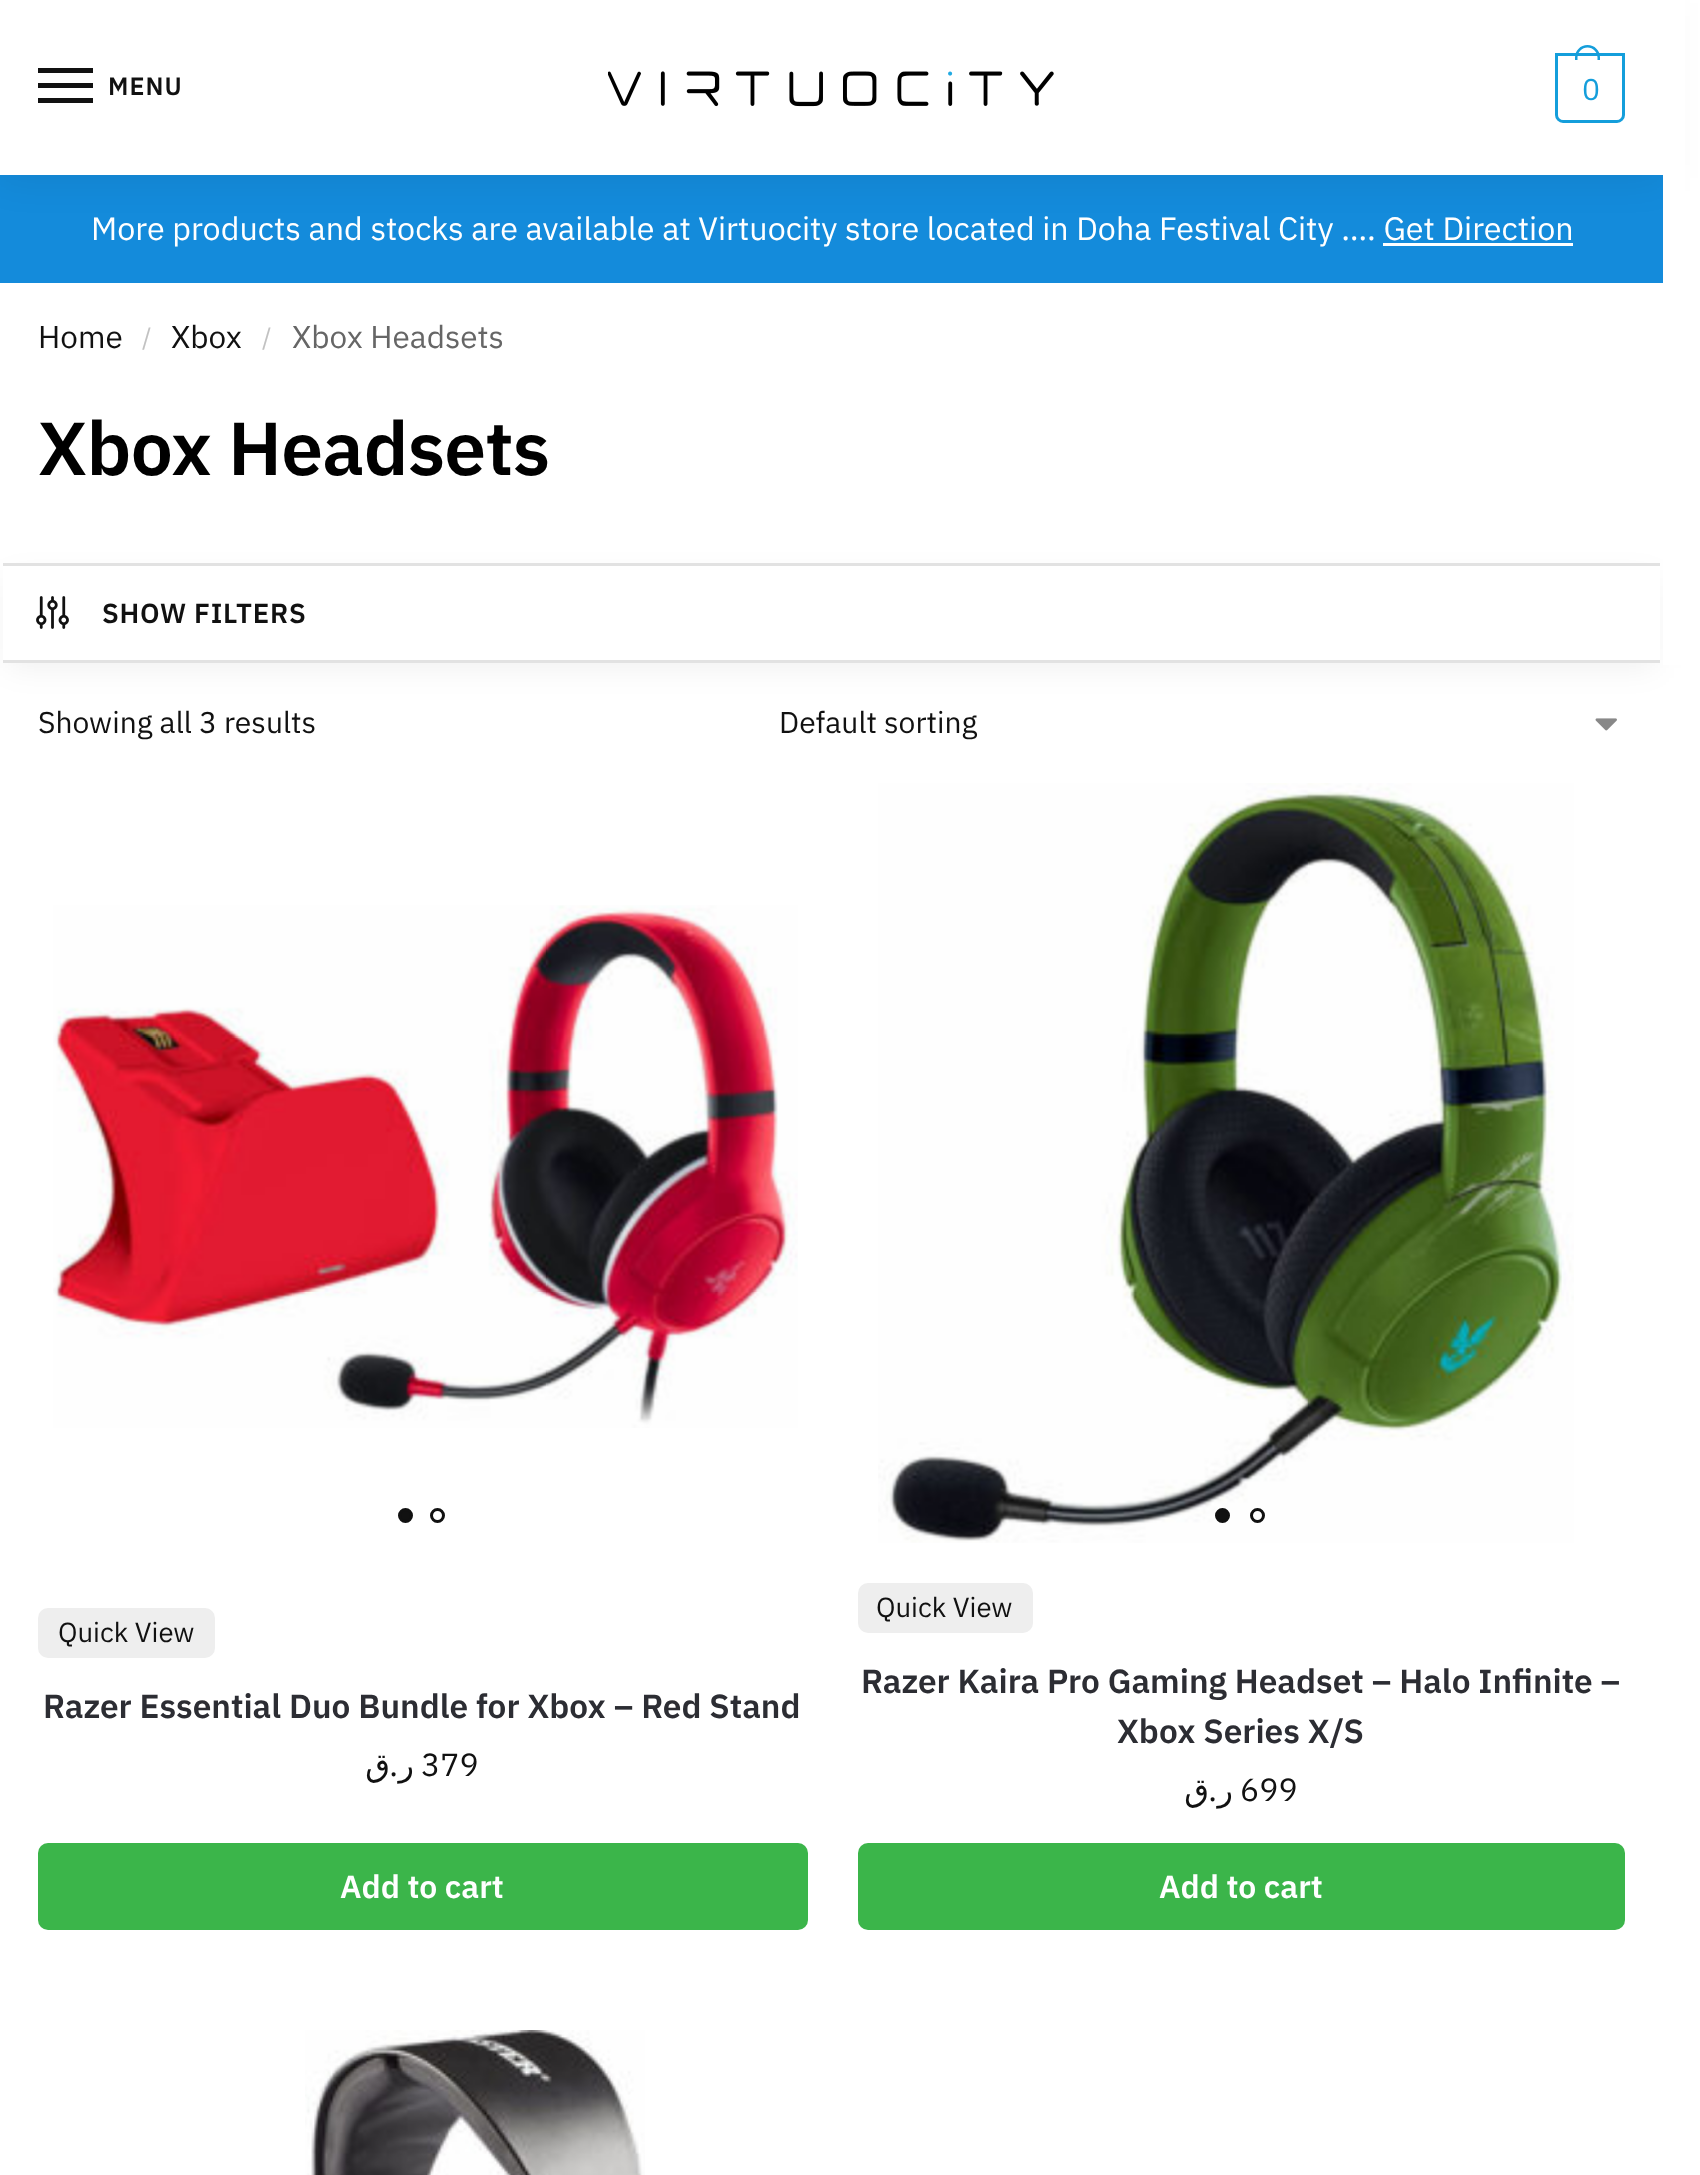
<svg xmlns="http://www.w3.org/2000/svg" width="1700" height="2175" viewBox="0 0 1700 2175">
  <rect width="100%" height="100%" fill="#fff"/>
  <path d="M0 175h1663v108H0z" fill="#148bdb"/>
  <path d="M0 3h1663v175H0z" fill="#00000014" filter="blur(19px)"/>
  <path d="M0 0h1663v175H0z" fill="#fff"/>
  <path d="M38 68h55v5H38z" fill="#111"/>
  <path d="M38 83h55v5H38z" fill="#111"/>
  <path d="M38 98h55v5H38z" fill="#111"/>
  <image x="608" y="71" width="446" height="36" href="img/1.png"/>
  <path d="M1556.5 54.5H1623.5V115C1623.5 118.5 1620.5 121.5 1617 121.5H1563C1559.5 121.5 1556.5 118.5 1556.5 115Z" fill="none" stroke="#149edb" stroke-width="3"/>
  <path d="M1587.5 45C1594.5 45 1600 50.5 1600 57.5V60H1575V57.5C1575 50.5 1580.5 45 1587.5 45ZM1587.5 47.5C1593 47.5 1597.5 52 1597.5 57.5V60H1577.5V57.5C1577.5 52 1582 47.5 1587.5 47.5Z" fill="#149edb" fill-rule="evenodd"/>
  <path d="M8 578h1647v90H8z" fill="#0000000f" filter="blur(15px)"/>
  <path d="M1663 0h22v665H1663z" fill="#fff"/>
  <path d="M1383 243h190v3H1383z" fill="#fff"/>
  <path d="M3 566h1657v94H3z" fill="#fff"/>
  <path d="M3 563h1657v3H3z" fill="#e2e2e2"/>
  <path d="M3 660h1657v3H3z" fill="#e2e2e2"/>
  <image x="36" y="596" width="33" height="33" href="img/2.png"/>
  <image x="1595" y="718" width="22" height="13" href="img/3.png"/>
  <image x="53" y="905" width="745" height="523" href="img/4.png"/>
  <circle cx="405.5" cy="1515.5" r="6" fill="#111" stroke="#111" stroke-width="3"/>
  <circle cx="437.5" cy="1515.5" r="6" fill="none" stroke="#111" stroke-width="3"/>
  <rect x="38" y="1608" width="177" height="50" rx="10" fill="#eee"/>
  <rect x="38" y="1843" width="770" height="87" rx="10" fill="#3bb54a"/>
  <image x="878" y="783" width="696" height="760" href="img/5.png"/>
  <circle cx="1222.5" cy="1515.5" r="6" fill="#111" stroke="#111" stroke-width="3"/>
  <circle cx="1257.5" cy="1515.5" r="6" fill="none" stroke="#111" stroke-width="3"/>
  <rect x="858" y="1583" width="175" height="50" rx="10" fill="#eee"/>
  <rect x="858" y="1843" width="767" height="87" rx="10" fill="#3bb54a"/>
  <image x="305" y="2030" width="340" height="145" href="img/6.png"/>
  <text x="108" y="95" font-family="IBM Plex Sans" font-size="25" font-weight="600" letter-spacing="1" fill="#111">MENU</text>
  <text x="1582" y="100" font-family="IBM Plex Sans" font-size="30" letter-spacing="-2" fill="#149edb">0</text>
  <text x="91" y="240" font-family="IBM Plex Sans" font-size="32.25" fill="#fff">More products and stocks are available at Virtuocity store located in Doha Festival City …. Get Direction</text>
  <text x="38" y="348" font-family="IBM Plex Sans" font-size="31.5" fill="#111">Home</text>
  <text x="142" y="346" font-family="IBM Plex Sans" font-size="25" fill="#c2c2c2">/</text>
  <text x="171" y="348" font-family="IBM Plex Sans" font-size="31.5" fill="#111">Xbox</text>
  <text x="262" y="346" font-family="IBM Plex Sans" font-size="25" fill="#c2c2c2">/</text>
  <text x="292" y="348" font-family="IBM Plex Sans" font-size="31.5" fill="#666">Xbox Headsets</text>
  <text x="38" y="475" font-family="IBM Plex Sans" font-size="75" font-weight="600" letter-spacing="-0.75" fill="#000">Xbox Headsets</text>
  <text x="102" y="623" font-family="IBM Plex Sans" font-size="27.5" font-weight="600" letter-spacing="0.75" fill="#111">SHOW FILTERS</text>
  <g font-family="IBM Plex Sans" font-size="30" fill="#111">
    <text x="38" y="733">Showing all 3 results</text>
    <text x="779" y="733">Default sorting</text>
  </g>
  <text x="58" y="1642" font-family="IBM Plex Sans" font-size="27.5" fill="#111">Quick View</text>
  <text x="43" y="1718" font-family="IBM Plex Sans" font-size="33.4" font-weight="600" fill="#2c2d33">Razer Essential Duo Bundle for Xbox – Red Stand</text>
  <text x="390" y="1776" font-family="DejaVu Sans" font-size="32" direction="rtl" fill="#111">ق</text>
  <text x="398" y="1776" font-family="IBM Plex Sans" font-size="32" direction="rtl" fill="#111">.</text>
  <text x="414" y="1776" font-family="DejaVu Sans" font-size="32" direction="rtl" fill="#111">ر</text>
  <text x="421" y="1776" font-family="IBM Plex Sans" font-size="32" fill="#111">379</text>
  <text x="340" y="1898" font-family="IBM Plex Sans" font-size="32" font-weight="600" fill="#fff">Add to cart</text>
  <text x="876" y="1617" font-family="IBM Plex Sans" font-size="27.5" fill="#111">Quick View</text>
  <g font-family="IBM Plex Sans" font-size="33.4" font-weight="600" fill="#2c2d33">
    <text x="861" y="1693">Razer Kaira Pro Gaming Headset – Halo Infinite –</text>
    <text x="1117" y="1743">Xbox Series X/S</text>
  </g>
  <text x="1209" y="1801" font-family="DejaVu Sans" font-size="32" direction="rtl" fill="#111">ق</text>
  <text x="1217" y="1801" font-family="IBM Plex Sans" font-size="32" direction="rtl" fill="#111">.</text>
  <text x="1233" y="1801" font-family="DejaVu Sans" font-size="32" direction="rtl" fill="#111">ر</text>
  <text x="1240" y="1801" font-family="IBM Plex Sans" font-size="32" fill="#111">699</text>
  <text x="1159" y="1898" font-family="IBM Plex Sans" font-size="32" font-weight="600" fill="#fff">Add to cart</text>
</svg>
